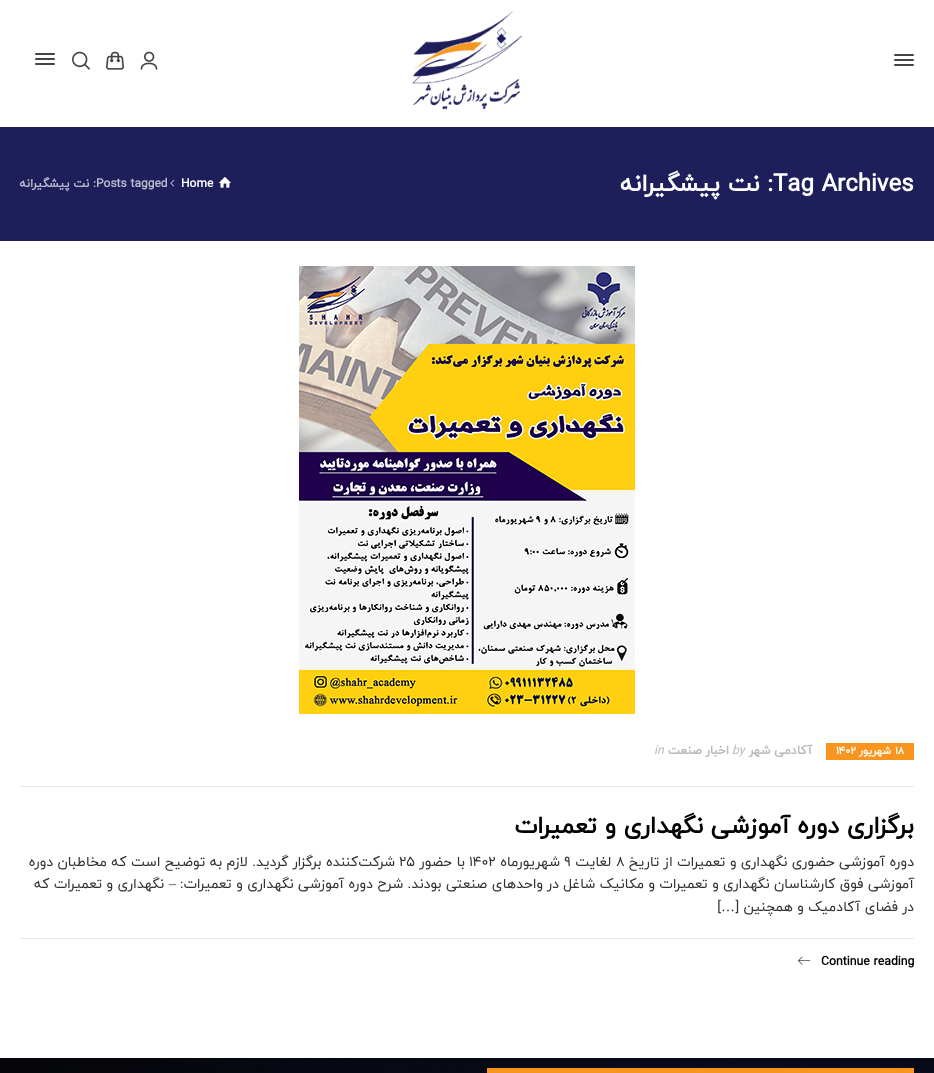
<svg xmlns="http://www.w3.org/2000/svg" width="934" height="1073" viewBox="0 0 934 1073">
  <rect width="100%" height="100%" fill="#fff"/>
  <rect x="894" y="54" width="20" height="2" rx="1" fill="#444"/>
  <rect x="894" y="59" width="20" height="2" rx="1" fill="#444"/>
  <rect x="894" y="64" width="20" height="2" rx="1" fill="#444"/>
  <image x="412" y="10" width="110" height="100" href="img/1.png"/>
  <image x="140" y="51" width="18" height="19" href="img/2.png"/>
  <image x="106" y="51" width="18" height="19" href="img/3.png"/>
  <image x="72" y="51" width="18" height="19" href="img/4.png"/>
  <rect x="35" y="53" width="20" height="2" rx="1" fill="#444"/>
  <rect x="35" y="58" width="20" height="2" rx="1" fill="#444"/>
  <rect x="35" y="63" width="20" height="2" rx="1" fill="#444"/>
  <path d="M0 127h934v114H0z" fill="#1e1e5a"/>
  <image x="219" y="177" width="12" height="11" href="img/5.png"/>
  <image x="170" y="180" width="5" height="7" href="img/6.png"/>
  <image x="299" y="266" width="336" height="448" href="img/7.png"/>
  <path d="M826 743h88v17H826z" fill="#f7951e"/>
  <path d="M20 786h894v1H20z" fill="#e8e8e8"/>
  <path d="M20 938h894v1H20z" fill="#e8e8e8"/>
  <image x="798" y="956" width="13" height="9" href="img/8.png"/>
  <image x="0" y="1058" width="934" height="15" href="img/9.png"/>
  <path d="M487 1068h427v5H487z" fill="#f7951e"/>
  <text x="773" y="191" font-family="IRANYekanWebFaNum" font-size="24" font-weight="bold" fill="#fff">Tag Archives</text>
  <text x="773" y="191" font-family="IRANYekanWebFaNum" font-size="24" font-weight="bold" direction="rtl" fill="#fff">: نت پیشگیرانه</text>
  <text x="181" y="187" font-family="IRANYekanWebFaNum" font-size="12" font-weight="bold" fill="#fff">Home</text>
  <text x="96" y="187" font-family="IRANYekanWebFaNum" font-size="12" font-weight="bold" fill="#bcbcce">Posts tagged</text>
  <text x="96" y="187" font-family="IRANYekanWebFaNum" font-size="12" font-weight="bold" direction="rtl" fill="#bcbcce">: نت پیشگیرانه</text>
  <text x="895" y="754" font-family="IRANYekanWebFaNum" font-size="10.5" font-weight="bold" fill="#fff">۱۸</text>
  <text x="891" y="754" font-family="IRANYekanWebFaNum" font-size="10.5" font-weight="bold" direction="rtl" fill="#fff">شهریور</text>
  <text x="836" y="754" font-family="IRANYekanWebFaNum" font-size="10.5" font-weight="bold" fill="#fff">۱۴۰۲</text>
  <text x="812" y="754" font-family="IRANYekanWebFaNum" font-size="12.25" font-weight="bold" direction="rtl" fill="#b9b9b9">آکادمی شهر</text>
  <text x="732" y="754" font-family="IRANYekanWebFaNum" font-size="12.25" font-style="italic" fill="#b9b9b9">by</text>
  <text x="729" y="754" font-family="IRANYekanWebFaNum" font-size="12.25" font-weight="bold" direction="rtl" fill="#b9b9b9">اخبار صنعت</text>
  <text x="654" y="754" font-family="IRANYekanWebFaNum" font-size="12.25" font-style="italic" fill="#b9b9b9">in</text>
  <text x="914" y="833" font-family="IRANYekanWebFaNum" font-size="24" font-weight="bold" direction="rtl" fill="#000">برگزاری دوره آموزشی نگهداری و تعمیرات</text>
  <text x="914" y="866" font-family="IRANYekanWebFaNum" font-size="14" direction="rtl" fill="#323131">دوره آموزشی حضوری نگهداری و تعمیرات از تاریخ</text>
  <text x="616" y="866" font-family="IRANYekanWebFaNum" font-size="14" fill="#323131">۸</text>
  <text x="611" y="866" font-family="IRANYekanWebFaNum" font-size="14" direction="rtl" fill="#323131">لغایت</text>
  <text x="564" y="866" font-family="IRANYekanWebFaNum" font-size="14" fill="#323131">۹</text>
  <text x="560" y="866" font-family="IRANYekanWebFaNum" font-size="14" direction="rtl" fill="#323131">شهریورماه</text>
  <text x="469" y="866" font-family="IRANYekanWebFaNum" font-size="14" fill="#323131">۱۴۰۲</text>
  <text x="465" y="866" font-family="IRANYekanWebFaNum" font-size="14" direction="rtl" fill="#323131">با حضور</text>
  <text x="399" y="866" font-family="IRANYekanWebFaNum" font-size="14" fill="#323131">۲۵</text>
  <g font-family="IRANYekanWebFaNum" font-size="14" direction="rtl" fill="#323131">
    <text x="358" y="866">کننده برگزار گردید. لازم به توضیح است که مخاطبان دوره</text>
    <text x="395" y="866">شرکت</text>
    <text x="914" y="888">آموزشی فوق کارشناسان نگهداری و تعمیرات و مکانیک شاغل در واحدهای صنعتی بودند. شرح دوره آموزشی نگهداری و تعمیرات:</text>
  </g>
  <text x="176" y="888" font-family="Liberation Serif" font-size="14" direction="rtl" fill="#323131">–</text>
  <g font-family="IRANYekanWebFaNum" font-size="14" direction="rtl" fill="#323131">
    <text x="164" y="888">نگهداری و تعمیرات که</text>
    <text x="914" y="911">در فضای آکادمیک و همچنین [</text>
  </g>
  <text x="735" y="911" font-family="Liberation Serif" font-size="14" direction="rtl" fill="#323131">…</text>
  <text x="721" y="911" font-family="IRANYekanWebFaNum" font-size="14" direction="rtl" fill="#323131">]</text>
  <text x="821" y="965" font-family="IRANYekanWebFaNum" font-size="12.25" font-weight="bold" fill="#000">Continue reading</text>
</svg>
